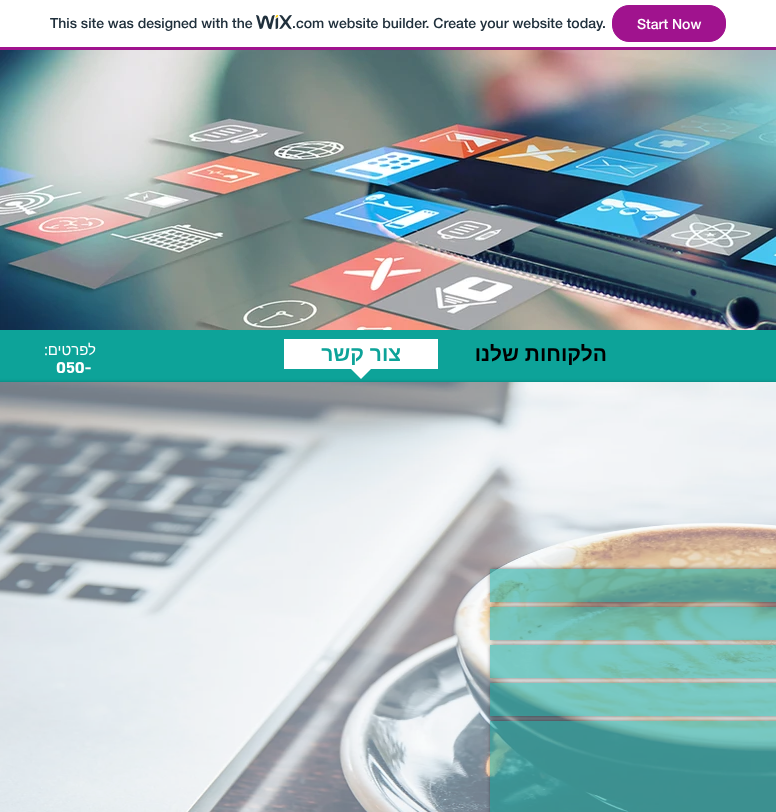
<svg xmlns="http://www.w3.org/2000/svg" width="776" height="812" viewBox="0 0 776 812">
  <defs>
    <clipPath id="clip1"><path d="M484 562H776V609H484ZM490 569H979V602H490Z" clip-rule="evenodd"/></clipPath>
    <clipPath id="clip2"><path d="M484 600H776V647H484ZM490 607H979V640H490Z" clip-rule="evenodd"/></clipPath>
    <clipPath id="clip3"><path d="M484 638H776V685H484ZM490 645H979V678H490Z" clip-rule="evenodd"/></clipPath>
    <clipPath id="clip4"><path d="M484 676H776V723H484ZM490 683H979V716H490Z" clip-rule="evenodd"/></clipPath>
    <clipPath id="clip5"><path d="M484 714H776V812H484ZM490 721H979V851H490Z" clip-rule="evenodd"/></clipPath>
  </defs>
  <rect width="100%" height="100%" fill="#fff"/>
  <path d="M0 47h776v3H0z" fill="#a0138e"/>
  <image x="256" y="15" width="36" height="15" href="img/1.png"/>
  <rect x="612.5" y="5.5" width="113" height="36" rx="16.5" fill="#a0138e" stroke="#a0138e"/>
  <path d="M0 330h776v52H0z" fill="#0da399"/>
  <image x="0" y="50" width="776" height="280" href="img/2.png"/>
  <path d="M284 339h154v30H284z" fill="#fff"/>
  <rect x="-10" y="384" width="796" height="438" rx="2" fill="#00000087" filter="blur(2.5px)"/>
  <path d="M351 369H371L361 379Z" fill="#fff"/>
  <image x="0" y="382" width="776" height="430" href="img/3.png"/>
  <g clip-path="url(#clip1)">
    <path d="M491 569h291v33H491z" fill="#00000099" filter="blur(2px)"/>
  </g>
  <path d="M490 569h286v33H490z" fill="#0da3998a"/>
  <g clip-path="url(#clip2)">
    <path d="M491 607h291v33H491z" fill="#00000099" filter="blur(2px)"/>
  </g>
  <path d="M490 607h286v33H490z" fill="#0da3998a"/>
  <g clip-path="url(#clip3)">
    <path d="M491 645h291v33H491z" fill="#00000099" filter="blur(2px)"/>
  </g>
  <path d="M490 645h286v33H490z" fill="#0da3998a"/>
  <g clip-path="url(#clip4)">
    <path d="M491 683h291v33H491z" fill="#00000099" filter="blur(2px)"/>
  </g>
  <path d="M490 683h286v33H490z" fill="#0da3998a"/>
  <g clip-path="url(#clip5)">
    <path d="M491 721h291v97H491z" fill="#00000099" filter="blur(2px)"/>
  </g>
  <path d="M490 721h286v91H490z" fill="#0da3998a"/>
  <g font-family="'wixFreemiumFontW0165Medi'" font-size="14" font-weight="500" fill="#20303c">
    <text x="50" y="28">This site was designed with the</text>
    <text x="292" y="28">.com website builder. Create your website today.</text>
  </g>
  <text x="637" y="29" font-family="'wixFreemiumFontW0165Medi'" font-size="14" font-weight="500" fill="#fff">Start Now</text>
  <text x="44" y="355" font-family="Open Sans" font-size="15" fill="#fff">:</text>
  <text x="96" y="355" font-family="Liberation Sans" font-size="15" direction="rtl" fill="#fff">לפרטים</text>
  <text x="56" y="373" font-family="'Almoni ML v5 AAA'" font-size="18" font-weight="bold" fill="#fff">050-</text>
  <text x="401" y="361" font-family="Liberation Sans" font-size="21" font-weight="bold" direction="rtl" fill="#0da399">צור קשר</text>
  <text x="607" y="361" font-family="Liberation Sans" font-size="21" font-weight="bold" direction="rtl" fill="#000">הלקוחות שלנו</text>
</svg>
